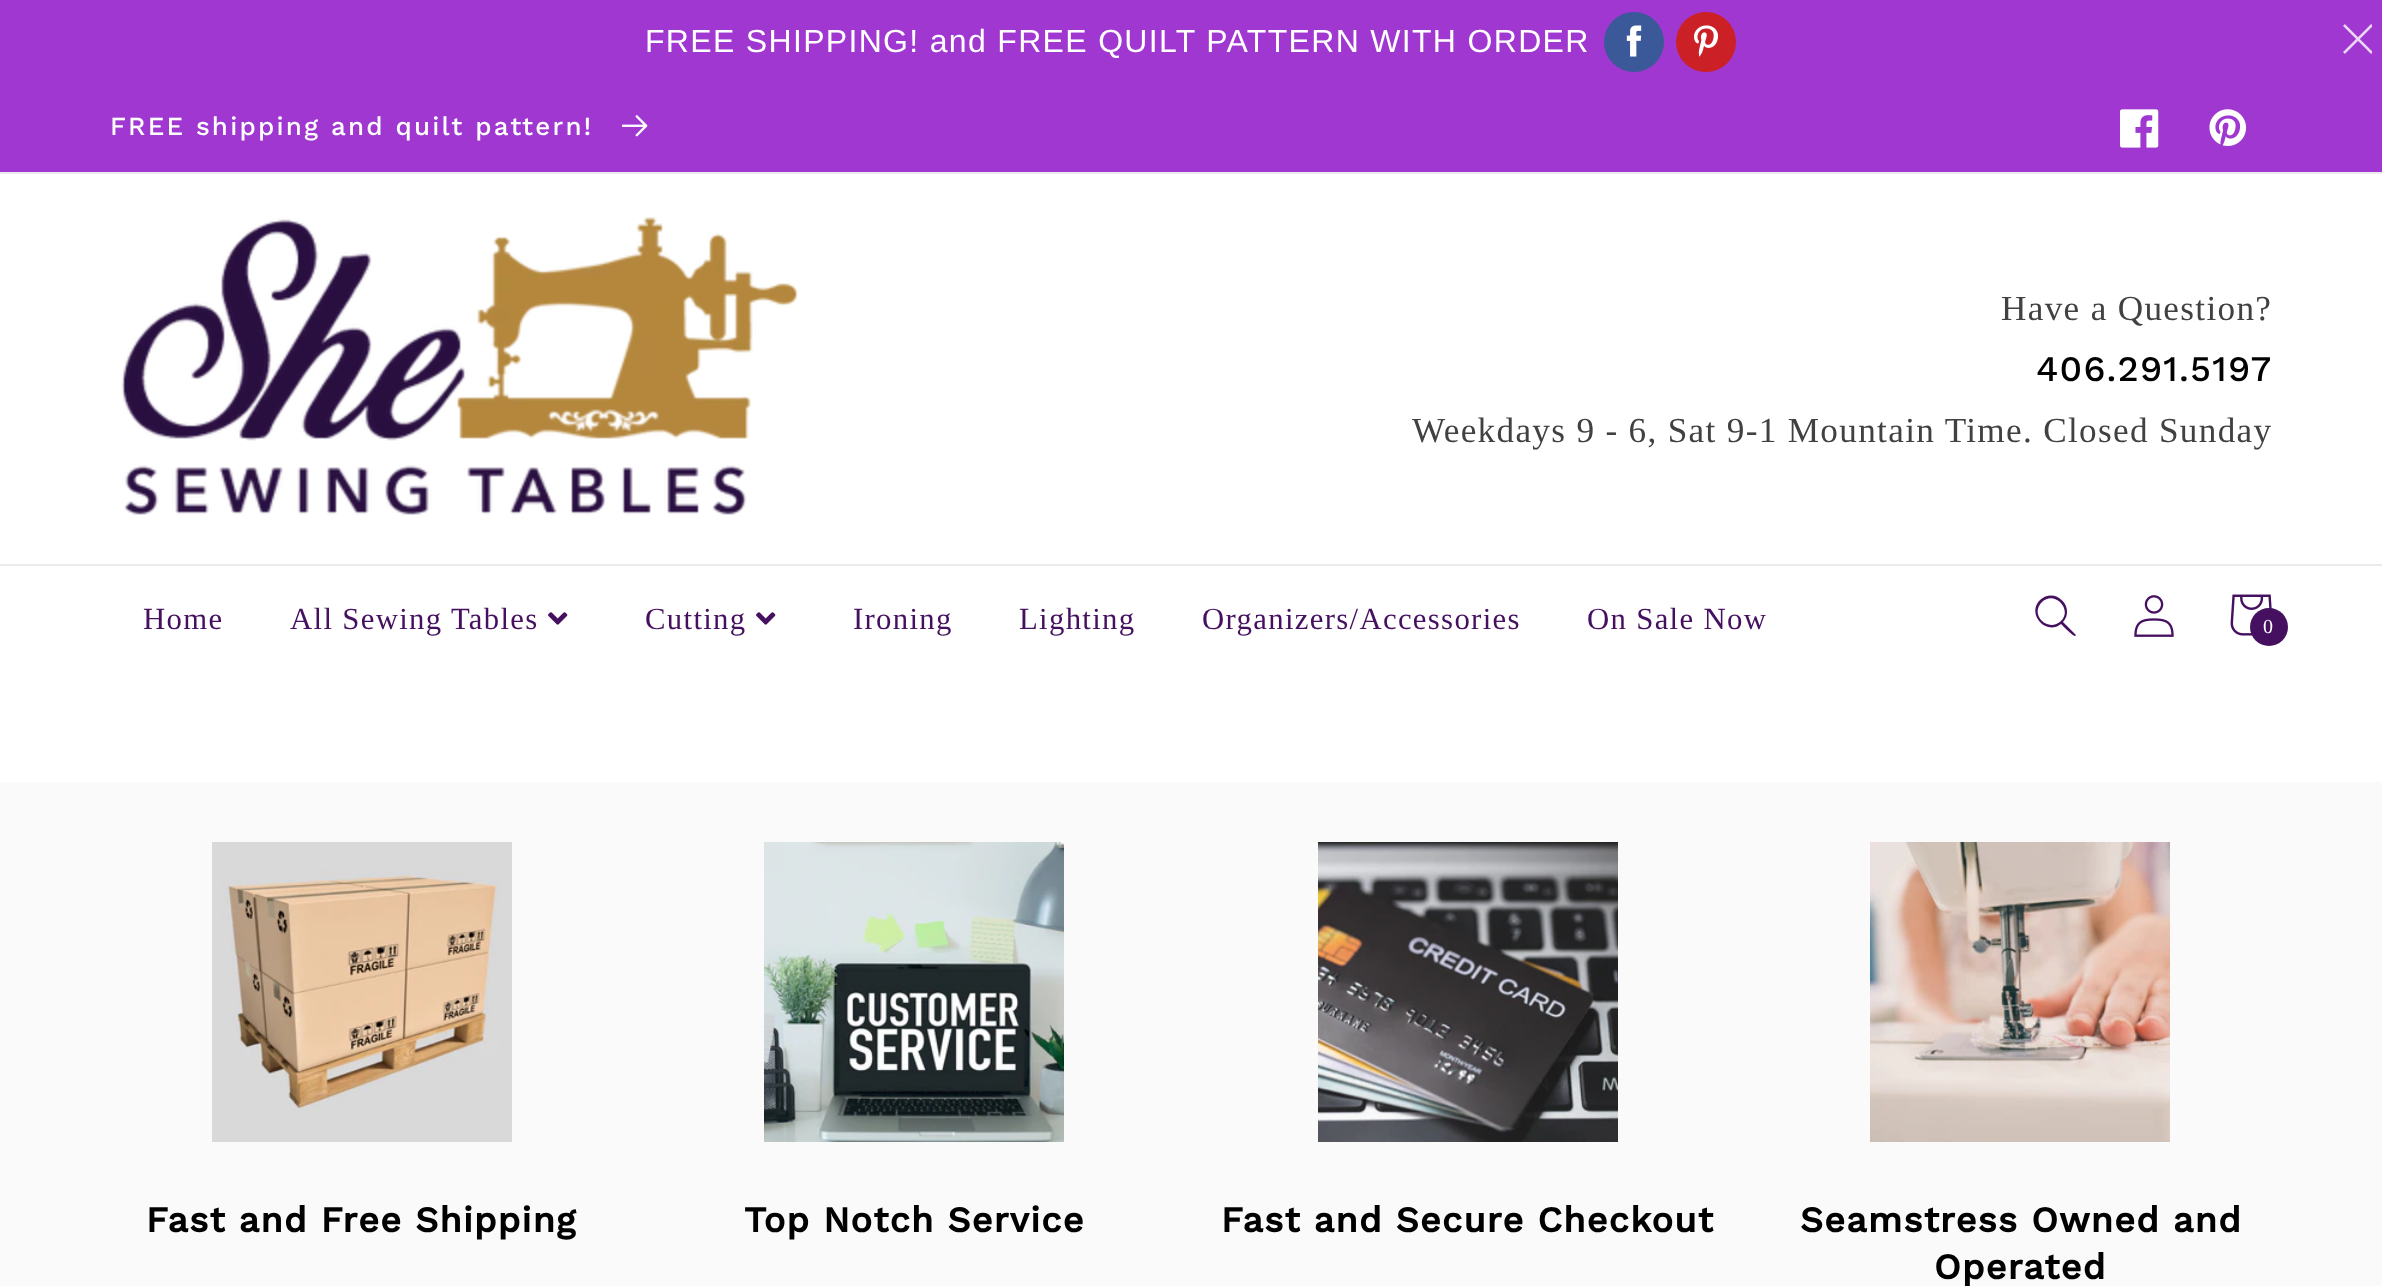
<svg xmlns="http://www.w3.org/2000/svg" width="2382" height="1286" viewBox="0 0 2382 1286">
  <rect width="100%" height="100%" fill="#fff"/>
  <path d="M0 0h2382v172H0z" fill="#9f37d0"/>
  <circle cx="1634" cy="42" r="30" fill="#3b5999"/>
  <image x="1626" y="25" width="16" height="32" href="img/1.png"/>
  <circle cx="1706" cy="42" r="30" fill="#cb2026"/>
  <image x="1694" y="25" width="24" height="32" href="img/2.png"/>
  <image x="2343" y="24" width="29" height="30" href="img/3.png"/>
  <path d="M0 172h2382v2H0z" fill="#ebebeb"/>
  <image x="622" y="115" width="26" height="22" href="img/4.png"/>
  <image x="2120" y="109" width="39" height="39" href="img/5.png"/>
  <image x="2209" y="109" width="38" height="37" href="img/6.png"/>
  <path d="M0 564h2382v2H0z" fill="#ebebeb"/>
  <image x="121" y="217" width="677" height="298" href="img/7.png"/>
  <image x="548" y="612" width="20" height="13" href="img/8.png"/>
  <image x="756" y="612" width="20" height="13" href="img/8.png"/>
  <path d="M2061 621C2048 633 2029 615 2042 602C2054 590 2073 609 2061 621ZM2061 624C2046 636 2026 614 2040 600C2055 586 2076 607 2063 622L2076 635L2075 636C2074 637 2063 626 2061 624Z" fill="#461060" fill-rule="evenodd"/>
  <image x="2134" y="595" width="40" height="42" href="img/9.png"/>
  <image x="2230" y="594" width="42" height="42" href="img/10.png"/>
  <circle cx="2269" cy="627" r="19" fill="#461060"/>
  <path d="M0 782h2382v504H0z" fill="#fafafa"/>
  <image x="212" y="842" width="300" height="300" href="img/11.png"/>
  <image x="764" y="842" width="300" height="300" href="img/12.png"/>
  <image x="1318" y="842" width="300" height="300" href="img/13.png"/>
  <image x="1870" y="842" width="300" height="300" href="img/14.png"/>
  <text x="645" y="52" font-family="Liberation Sans" font-size="32" letter-spacing="1.32" fill="#fff">FREE SHIPPING! and FREE QUILT PATTERN WITH ORDER</text>
  <text x="110" y="135" font-family="Work Sans" font-size="26" font-weight="500" letter-spacing="2.2" fill="#fff">FREE shipping and quilt pattern!</text>
  <text x="2001" y="320" font-family="Liberation Serif" font-size="35.2" letter-spacing="1.32" fill="#414141">Have a Question?</text>
  <text x="2036" y="381" font-family="Work Sans" font-size="36" font-weight="500" letter-spacing="1.2" fill="#000">406.291.5197</text>
  <text x="1412" y="442" font-family="Liberation Serif" font-size="35.2" letter-spacing="1.32" fill="#414141">Weekdays 9 - 6, Sat 9-1 Mountain Time. Closed Sunday</text>
  <g font-family="Liberation Serif" font-size="30.75" letter-spacing="1.32" fill="#461060">
    <text x="143" y="629">Home</text>
    <text x="290" y="629">All Sewing Tables</text>
    <text x="645" y="629">Cutting</text>
    <text x="853" y="629">Ironing</text>
    <text x="1019" y="629">Lighting</text>
    <text x="1202" y="629">Organizers/Accessories</text>
    <text x="1587" y="629">On Sale Now</text>
  </g>
  <text x="2263" y="633" font-family="Liberation Serif" font-size="20" letter-spacing="1.32" fill="#fff">0</text>
  <g font-family="Work Sans" font-size="36" font-weight="bold" letter-spacing="1.2" fill="#000">
    <text x="146" y="1232">Fast and Free Shipping</text>
    <text x="744" y="1232">Top Notch Service</text>
    <text x="1221" y="1232">Fast and Secure Checkout</text>
    <text x="1800" y="1232">Seamstress Owned and</text>
    <text x="1934" y="1279">Operated</text>
  </g>
</svg>
